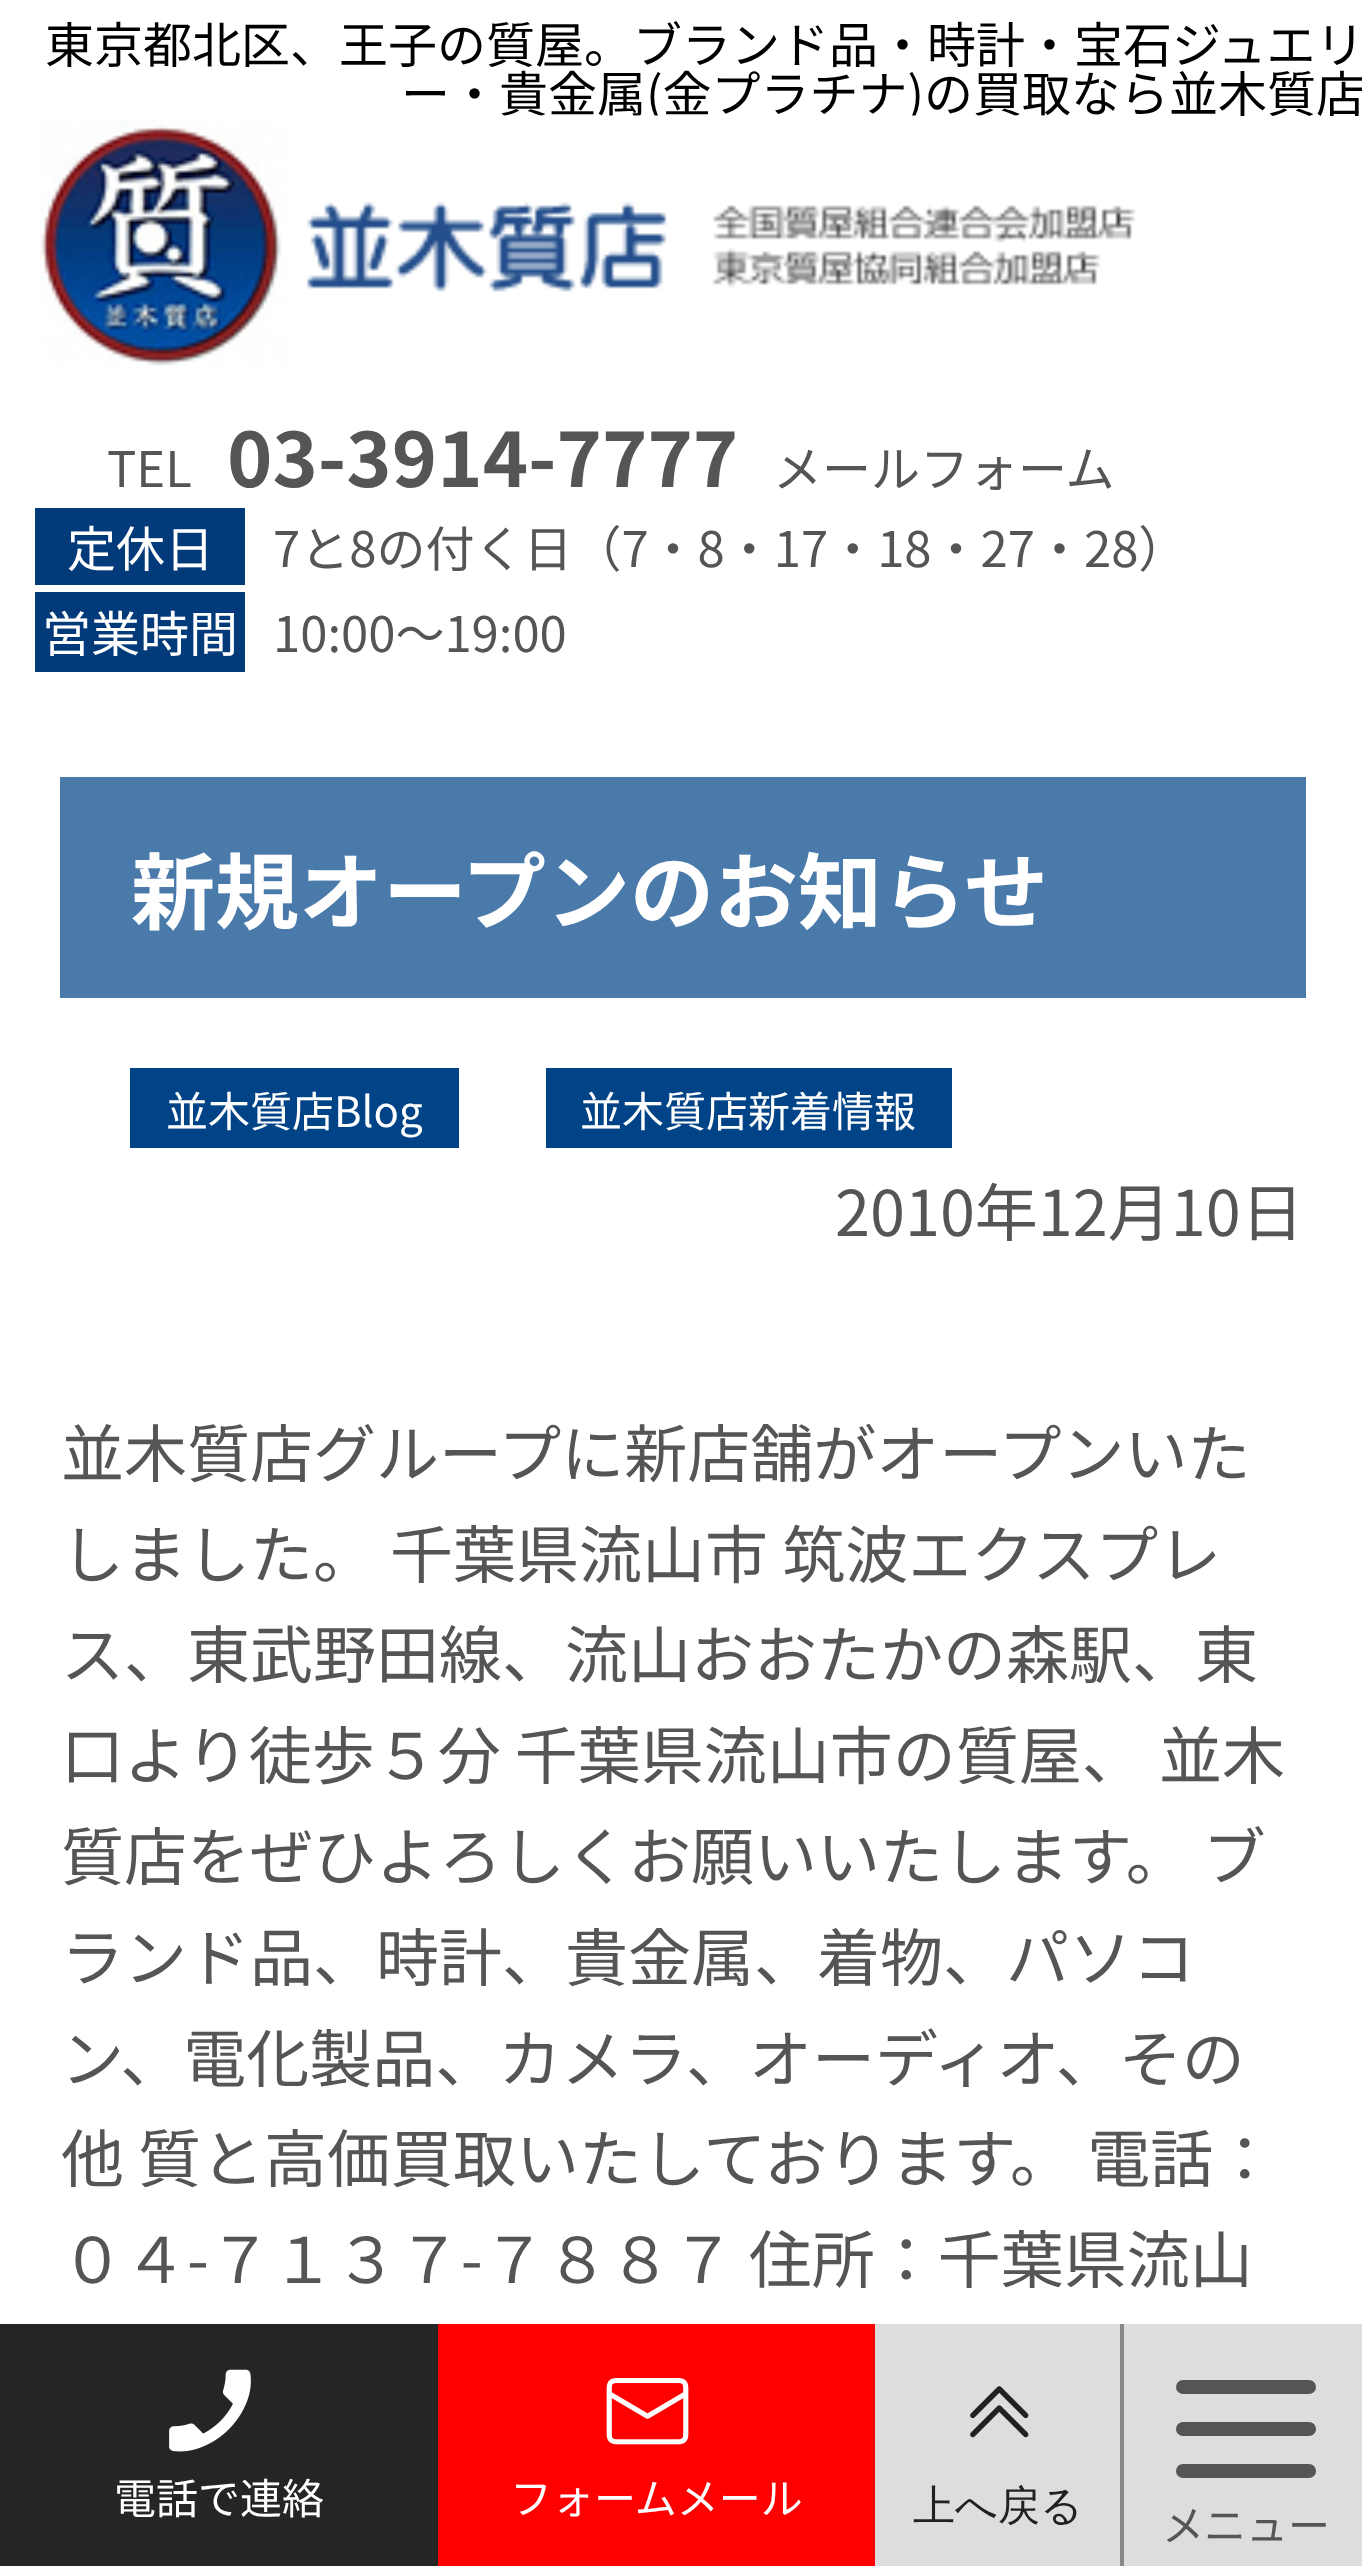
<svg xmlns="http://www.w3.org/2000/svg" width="1362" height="2566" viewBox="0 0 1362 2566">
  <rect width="100%" height="100%" fill="#fff"/>
  <path d="M35 508h210v77H35z" fill="#023a7a"/>
  <path d="M35 592h210v80H35z" fill="#023a7a"/>
  <path d="M60 777h1246v221H60z" fill="#497aaa"/>
  <path d="M130 1068h329v80H130z" fill="#004386"/>
  <path d="M546 1068h406v80H546z" fill="#004386"/>
  <path d="M875 2324h487v242H875z" fill="#ddd"/>
  <image x="970" y="2386" width="59" height="52" href="img/2.png"/>
  <path d="M0 2324h438v242H0z" fill="#252525"/>
  <image x="169" y="2369" width="82" height="83" href="img/3.png"/>
  <path d="M438 2324h437v242H438z" fill="#f00"/>
  <image x="606" y="2378" width="83" height="67" href="img/4.png"/>
  <path d="M1120 2324h4v242H1120z" fill="#888"/>
  <rect x="1176" y="2380" width="140" height="14" rx="7" fill="#555"/>
  <rect x="1176" y="2422" width="140" height="14" rx="7" fill="#555"/>
  <rect x="1176" y="2464" width="140" height="14" rx="7" fill="#555"/>
  <g font-family="Noto Sans JP" font-size="49" fill="#000">
    <text x="45" y="63">東京都北区、王子の質屋。ブランド品・時計・宝石ジュエリ</text>
    <text x="401" y="112">ー・貴金属(金プラチナ)の買取なら並木質店</text>
  </g>
  <image x="39" y="115" width="1097" height="251" href="img/1.png"/>
  <text x="107" y="487" font-family="Noto Sans JP" font-size="49" fill="#555">TEL</text>
  <text x="227" y="487" font-family="Noto Sans JP" font-size="77" font-weight="bold" fill="#555">03-3914-7777</text>
  <text x="773" y="487" font-family="Noto Sans JP" font-size="49" fill="#555">メールフォーム</text>
  <text x="67" y="567" font-family="Noto Sans JP" font-size="49" fill="#fff">定休日</text>
  <text x="273" y="567" font-family="Noto Sans JP" font-size="49" fill="#555">7と8の付く日（7・8・17・18・27・28）</text>
  <text x="42" y="652" font-family="Noto Sans JP" font-size="49" fill="#fff">営業時間</text>
  <text x="273" y="652" font-family="Noto Sans JP" font-size="49" fill="#555">10:00～19:00</text>
  <text x="131" y="923" font-family="Noto Sans JP" font-size="84" font-weight="bold" fill="#fff">新規オープンのお知らせ</text>
  <g font-family="Noto Sans JP" font-size="42" fill="#fff">
    <text x="166" y="1127">並木質店Blog</text>
    <text x="580" y="1127">並木質店新着情報</text>
  </g>
  <g font-family="Noto Sans JP" font-size="63" fill="#555">
    <text x="835" y="1236">2010年12月10日</text>
    <text x="61" y="1477">並木質店グループに新店舗がオープンいた</text>
    <text x="61" y="1578">しました。 千葉県流山市 筑波エクスプレ</text>
    <text x="61" y="1678">ス、東武野田線、流山おおたかの森駅、東</text>
    <text x="61" y="1779">口より徒歩５分 千葉県流山市の質屋、 並木</text>
    <text x="61" y="1880">質店をぜひよろしくお願いいたします。 ブ</text>
    <text x="61" y="1981">ランド品、時計、貴金属、着物、パソコ</text>
    <text x="61" y="2082">ン、電化製品、カメラ、オーディオ、その</text>
    <text x="61" y="2182">他 質と高価買取いたしております。 電話：</text>
    <text x="61" y="2283">０４-７１３７-７８８７ 住所：千葉県流山</text>
  </g>
  <text x="913" y="2520" font-family="WenQuanYi Zen Hei" font-size="42" font-weight="500" fill="#212121">上へ戻る</text>
  <g font-family="Noto Sans JP" font-size="42" fill="#fff">
    <text x="114" y="2514">電話で連絡</text>
    <text x="510" y="2514">フォームメール</text>
  </g>
  <text x="1162" y="2541" font-family="Noto Sans JP" font-size="42" fill="#555">メニュー</text>
</svg>
